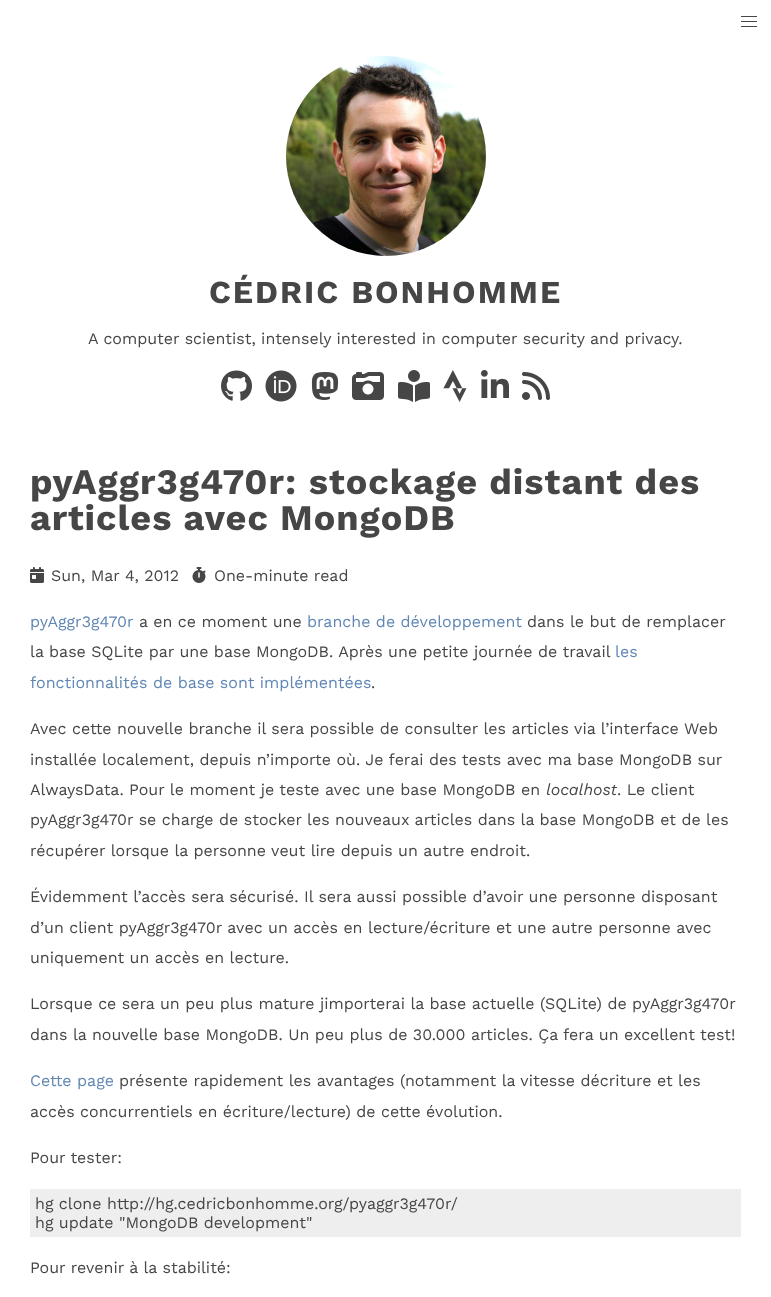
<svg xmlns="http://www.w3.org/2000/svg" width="771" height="1297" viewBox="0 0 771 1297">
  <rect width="100%" height="100%" fill="#fff"/>
  <image x="286" y="56" width="200" height="200" href="img/1.png"/>
  <image x="221" y="370" width="31" height="31" href="img/2.png"/>
  <image x="265" y="370" width="32" height="32" href="img/3.png"/>
  <image x="311" y="372" width="28" height="28" href="img/4.png"/>
  <image x="352" y="372" width="32" height="28" href="img/5.png"/>
  <image x="398" y="370" width="32" height="32" href="img/6.png"/>
  <image x="443" y="370" width="24" height="32" href="img/7.png"/>
  <image x="481" y="370" width="28" height="28" href="img/8.png"/>
  <image x="522" y="372" width="28" height="28" href="img/9.png"/>
  <path d="M741 16h16v1H741z" fill="#464646"/>
  <path d="M741 21h16v1H741z" fill="#464646"/>
  <path d="M741 26h16v1H741z" fill="#464646"/>
  <image x="30" y="567" width="14" height="16" href="img/10.png"/>
  <image x="192" y="567" width="14" height="16" href="img/11.png"/>
  <path d="M30 1189h711v48H30z" fill="#eee"/>
  <text x="209" y="303" font-family="Work Sans" font-size="32" font-weight="bold" letter-spacing="2" fill="#464646">CÉDRIC BONHOMME</text>
  <text x="88" y="344" font-family="Work Sans" font-size="16" fill="#464646">A computer scientist, intensely interested in computer security and privacy.</text>
  <g font-family="Work Sans" font-size="36" font-weight="bold" letter-spacing="1" fill="#464646">
    <text x="30" y="494">pyAggr3g470r: stockage distant des</text>
    <text x="30" y="530">articles avec MongoDB</text>
  </g>
  <g font-family="Work Sans" font-size="16" fill="#464646">
    <text x="51" y="581">Sun, Mar 4, 2012</text>
    <text x="214" y="581">One-minute read</text>
  </g>
  <text x="30" y="627" font-family="Work Sans" font-size="16" fill="#6086b4">pyAggr3g470r</text>
  <text x="139" y="627" font-family="Work Sans" font-size="16" fill="#464646">a en ce moment une</text>
  <text x="307" y="627" font-family="Work Sans" font-size="16" fill="#6086b4">branche de développement</text>
  <g font-family="Work Sans" font-size="16" fill="#464646">
    <text x="527" y="627">dans le but de remplacer</text>
    <text x="30" y="657">la base SQLite par une base MongoDB. Après une petite journée de travail</text>
  </g>
  <g font-family="Work Sans" font-size="16" fill="#6086b4">
    <text x="615" y="657">les</text>
    <text x="30" y="688">fonctionnalités de base sont implémentées</text>
  </g>
  <g font-family="Work Sans" font-size="16" fill="#464646">
    <text x="371" y="688">.</text>
    <text x="30" y="734">Avec cette nouvelle branche il sera possible de consulter les articles via l’interface Web</text>
    <text x="30" y="765">installée localement, depuis n’importe où. Je ferai des tests avec ma base MongoDB sur</text>
    <text x="30" y="795">AlwaysData. Pour le moment je teste avec une base MongoDB en</text>
  </g>
  <text x="546" y="795" font-family="Work Sans" font-size="16" font-style="italic" fill="#464646">localhost</text>
  <g font-family="Work Sans" font-size="16" fill="#464646">
    <text x="617" y="795">. Le client</text>
    <text x="30" y="825">pyAggr3g470r se charge de stocker les nouveaux articles dans la base MongoDB et de les</text>
    <text x="30" y="856">récupérer lorsque la personne veut lire depuis un autre endroit.</text>
    <text x="30" y="902">Évidemment l’accès sera sécurisé. Il sera aussi possible d’avoir une personne disposant</text>
    <text x="30" y="933">d’un client pyAggr3g470r avec un accès en lecture/écriture et une autre personne avec</text>
    <text x="30" y="963">uniquement un accès en lecture.</text>
    <text x="30" y="1009">Lorsque ce sera un peu plus mature jimporterai la base actuelle (SQLite) de pyAggr3g470r</text>
    <text x="30" y="1040">dans la nouvelle base MongoDB. Un peu plus de 30.000 articles. Ça fera un excellent test!</text>
  </g>
  <text x="30" y="1086" font-family="Work Sans" font-size="16" fill="#6086b4">Cette page</text>
  <g font-family="Work Sans" font-size="16" fill="#464646">
    <text x="119" y="1086">présente rapidement les avantages (notamment la vitesse décriture et les</text>
    <text x="30" y="1117">accès concurrentiels en écriture/lecture) de cette évolution.</text>
    <text x="30" y="1163">Pour tester:</text>
    <text x="35" y="1209">hg clone http://hg.cedricbonhomme.org/pyaggr3g470r/</text>
    <text x="35" y="1228">hg update "MongoDB development"</text>
    <text x="30" y="1273">Pour revenir à la stabilité:</text>
  </g>
</svg>
